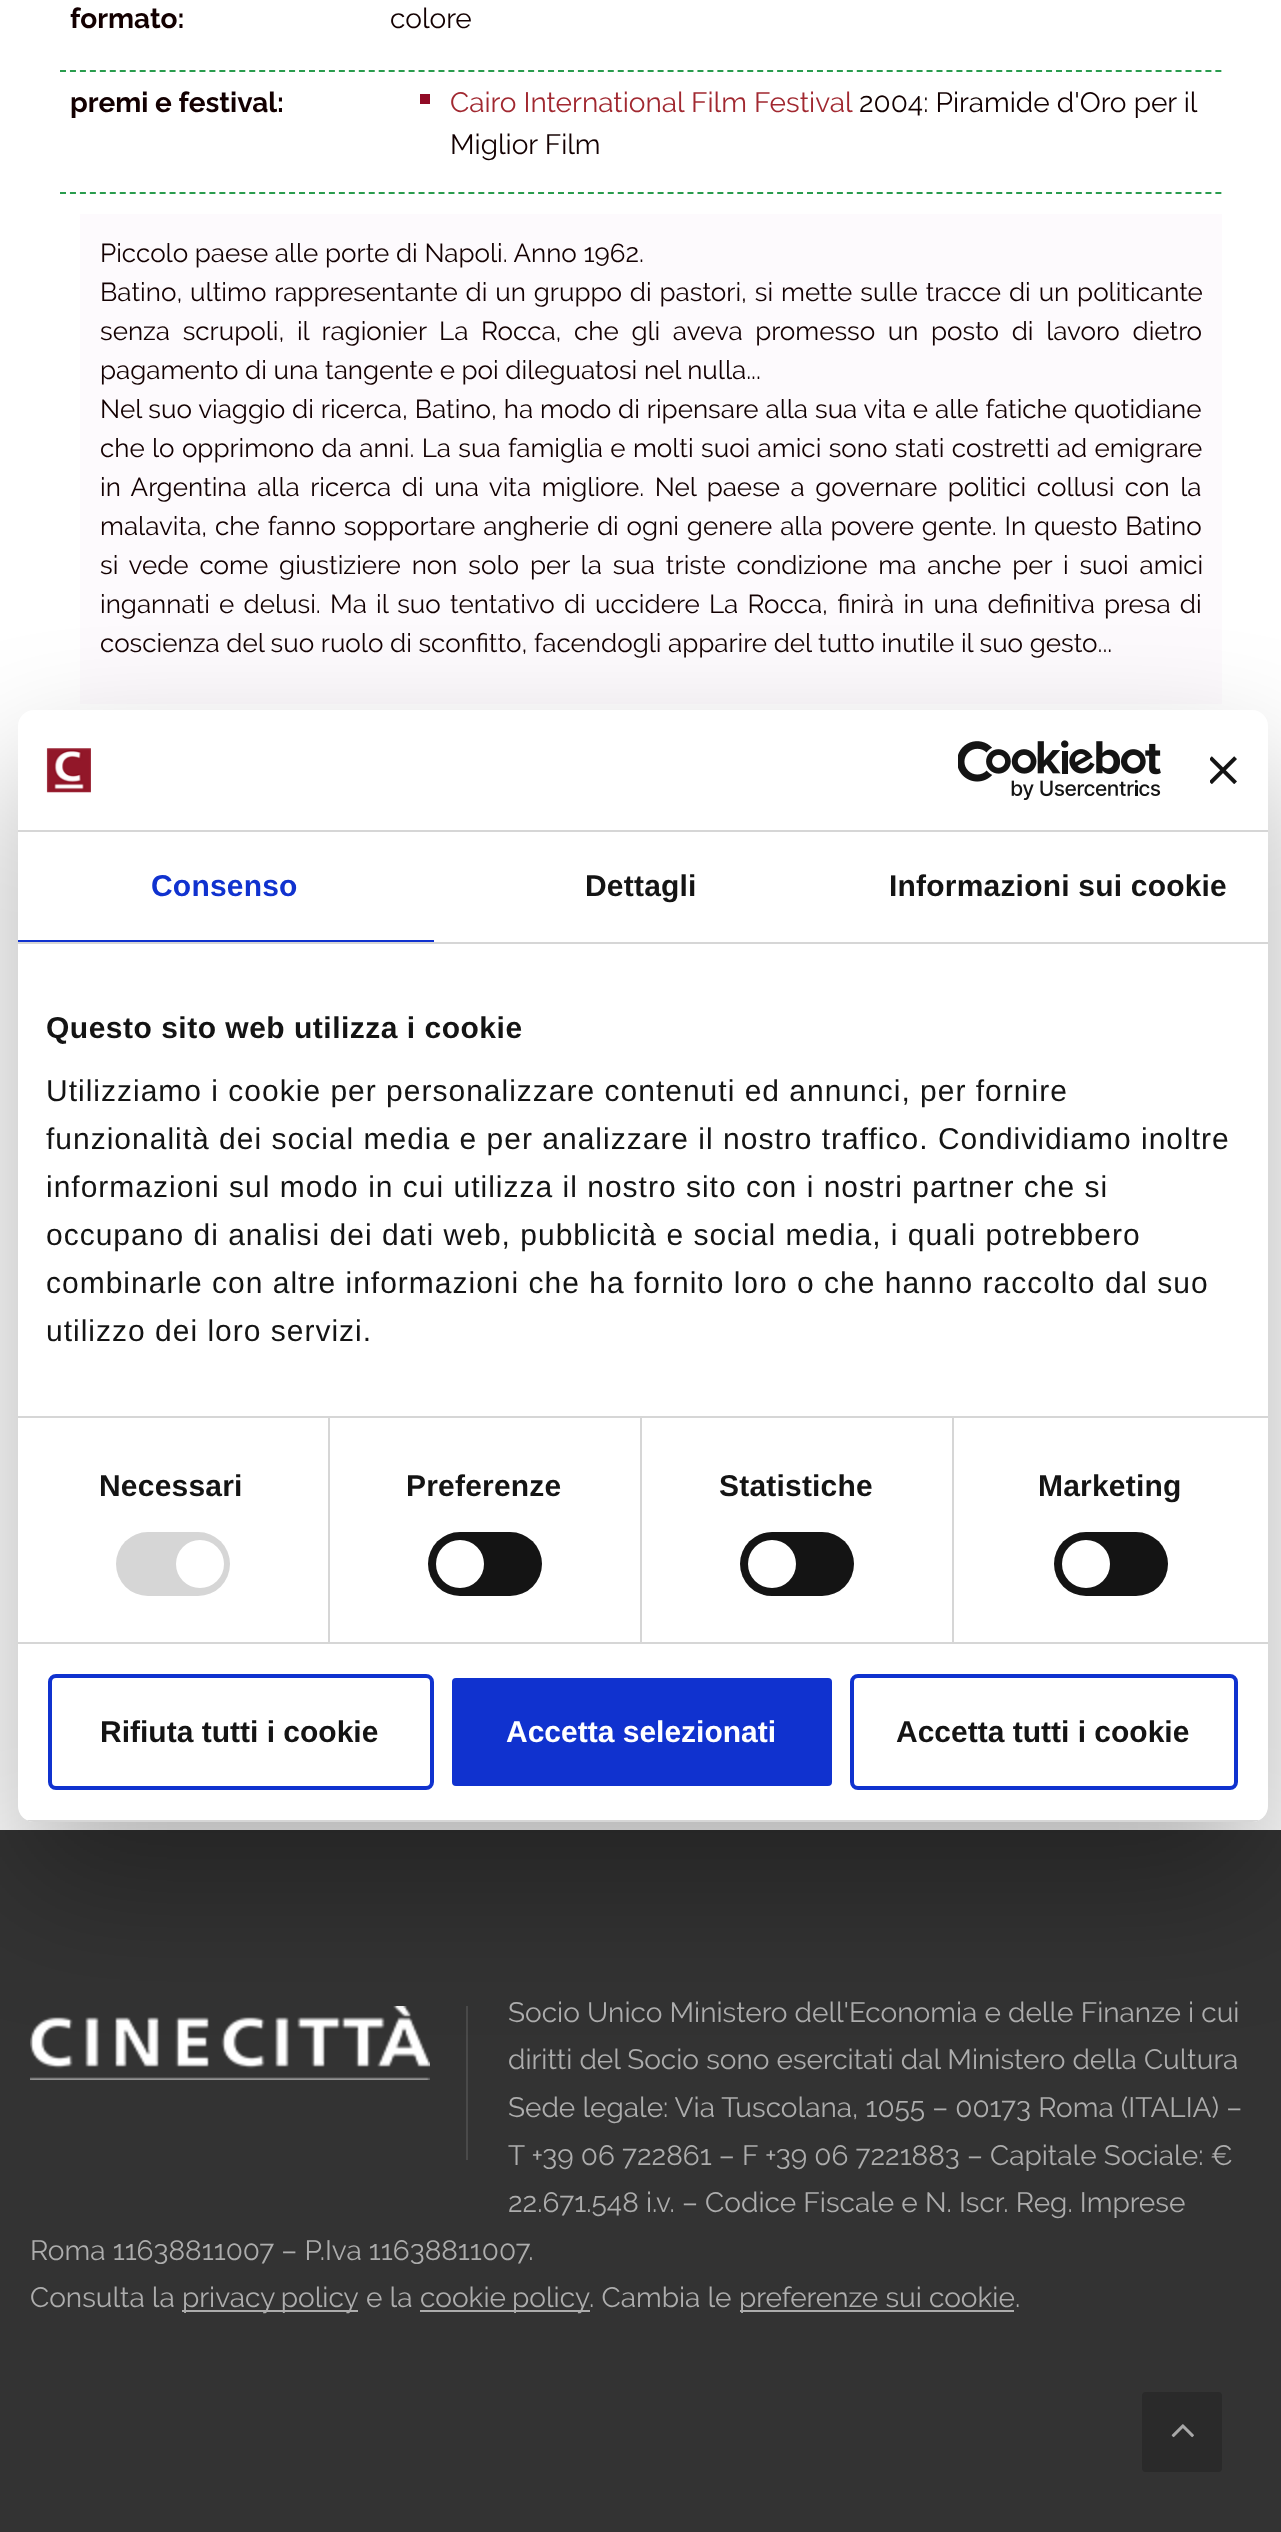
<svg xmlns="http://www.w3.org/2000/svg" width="1281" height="2532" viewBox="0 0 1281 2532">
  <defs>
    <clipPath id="clip1"><rect x="18" y="710" width="1250" height="1112" rx="16"/></clipPath>
  </defs>
  <rect width="100%" height="100%" fill="#fff"/>
  <path d="M60 71H1222" fill="none" stroke="#2a9c4e" stroke-width="2" stroke-dasharray="6 3.96"/>
  <path d="M60 193H1222" fill="none" stroke="#2a9c4e" stroke-width="2" stroke-dasharray="6 3.96"/>
  <path d="M420 94h10v10H420z" fill="#910b26"/>
  <path d="M80 214h1142v490H80z" fill="#fdfafd"/>
  <path d="M0 1830h1281v702H0z" fill="#333"/>
  <path d="M182 2310h176v2H182z" fill="#adadad"/>
  <path d="M420 2310h170v2H420z" fill="#adadad"/>
  <path d="M740 2310h274v2H740z" fill="#adadad"/>
  <path d="M466 2006h2v154H466z" fill="#4a4a4a"/>
  <image x="30" y="2006" width="400" height="74" href="img/1.png"/>
  <rect x="18" y="774" width="1250" height="1112" rx="16" fill="#0000004d" filter="blur(68px)"/>
  <rect x="18" y="710" width="1250" height="1112" rx="16" fill="#fff"/>
  <path d="M18 830h1250v2H18z" fill="#d6d6d6"/>
  <image x="46" y="748" width="45" height="45" href="img/2.png"/>
  <image x="958" y="740" width="203" height="60" href="img/3.png"/>
  <image x="1210" y="756" width="27" height="28" href="img/4.png"/>
  <path d="M18 942h1250v2H18z" fill="#d6d6d6"/>
  <path d="M18 940h416v2H18z" fill="#1032cf"/>
  <path d="M18 1416h1250v2H18z" fill="#d6d6d6"/>
  <path d="M18 1642h1250v2H18z" fill="#d6d6d6"/>
  <path d="M328 1418h2v224H328z" fill="#d6d6d6"/>
  <rect x="116" y="1532" width="114" height="64" rx="32" fill="#d6d6d6"/>
  <circle cx="200" cy="1564" r="24" fill="#fff"/>
  <path d="M640 1418h2v224H640z" fill="#d6d6d6"/>
  <rect x="428" y="1532" width="114" height="64" rx="32" fill="#141414"/>
  <circle cx="460" cy="1564" r="24" fill="#fff"/>
  <path d="M952 1418h2v224H952z" fill="#d6d6d6"/>
  <rect x="740" y="1532" width="114" height="64" rx="32" fill="#141414"/>
  <circle cx="772" cy="1564" r="24" fill="#fff"/>
  <rect x="1054" y="1532" width="114" height="64" rx="32" fill="#141414"/>
  <circle cx="1086" cy="1564" r="24" fill="#fff"/>
  <g clip-path="url(#clip1)">
    <path d="M18 1820h1250v2H18z" fill="#d6d6d6"/>
  </g>
  <rect x="50" y="1676" width="382" height="112" rx="6" fill="none" stroke="#1032cf" stroke-width="4"/>
  <rect x="450" y="1676" width="384" height="112" rx="6" fill="#1032cf" stroke="#fff" stroke-width="4"/>
  <rect x="852" y="1676" width="384" height="112" rx="6" fill="none" stroke="#1032cf" stroke-width="4"/>
  <rect x="1142" y="2392" width="80" height="80" rx="4" fill="#2a2a2a"/>
  <image x="1171" y="2424" width="23" height="14" href="img/5.png"/>
  <text x="70" y="28" font-family="Raleway" font-size="28" font-weight="bold" fill="#130001">formato:</text>
  <text x="390" y="28" font-family="Raleway" font-size="28" fill="#130001">colore</text>
  <text x="70" y="112" font-family="Raleway" font-size="28" font-weight="bold" fill="#130001">premi e festival:</text>
  <text x="450" y="112" font-family="Raleway" font-size="28" fill="#a12830">Cairo International Film Festival</text>
  <g font-family="Raleway" font-size="28" fill="#130001">
    <text x="859" y="112">2004: Piramide d'Oro per il</text>
    <text x="450" y="154">Miglior Film</text>
  </g>
  <g font-family="Raleway" font-size="26" fill="#130001">
    <text x="100" y="262">Piccolo paese alle porte di Napoli. Anno 1962.</text>
    <text x="100" y="301" word-spacing="1.25">Batino, ultimo rappresentante di un gruppo di pastori, si mette sulle tracce di un politicante</text>
    <text x="100" y="340" word-spacing="6">senza scrupoli, il ragionier La Rocca, che gli aveva promesso un posto di lavoro dietro</text>
    <text x="100" y="379">pagamento di una tangente e poi dileguatosi nel nulla...</text>
    <text x="100" y="418" word-spacing="0.3">Nel suo viaggio di ricerca, Batino, ha modo di ripensare alla sua vita e alle fatiche quotidiane</text>
    <text x="100" y="457" word-spacing="0.7">che lo opprimono da anni. La sua famiglia e molti suoi amici sono stati costretti ad emigrare</text>
    <text x="100" y="496" word-spacing="3.9">in Argentina alla ricerca di una vita migliore. Nel paese a governare politici collusi con la</text>
    <text x="100" y="535" word-spacing="1.25">malavita, che fanno sopportare angherie di ogni genere alla povere gente. In questo Batino</text>
    <text x="100" y="574" word-spacing="4.25">si vede come giustiziere non solo per la sua triste condizione ma anche per i suoi amici</text>
    <text x="100" y="613" word-spacing="2.6">ingannati e delusi. Ma il suo tentativo di uccidere La Rocca, finirà in una definitiva presa di</text>
    <text x="100" y="652">coscienza del suo ruolo di sconfitto, facendogli apparire del tutto inutile il suo gesto...</text>
  </g>
  <g font-family="Raleway" font-size="28" fill="#adadad">
    <text x="508" y="2022">Socio Unico Ministero dell'Economia e delle Finanze i cui</text>
    <text x="508" y="2069">diritti del Socio sono esercitati dal Ministero della Cultura</text>
    <text x="508" y="2117">Sede legale: Via Tuscolana, 1055 – 00173 Roma (ITALIA) –</text>
    <text x="508" y="2165">T +39 06 722861 – F +39 06 7221883 – Capitale Sociale: €</text>
    <text x="508" y="2212">22.671.548 i.v. – Codice Fiscale e N. Iscr. Reg. Imprese</text>
    <text x="30" y="2260">Roma 11638811007 – P.Iva 11638811007.</text>
    <text x="30" y="2307">Consulta la</text>
    <text x="182" y="2307" word-spacing="-1">privacy policy</text>
    <text x="366" y="2307">e la</text>
    <text x="420" y="2307" word-spacing="-1">cookie policy</text>
    <text x="589" y="2307">. Cambia le</text>
    <text x="739" y="2307">preferenze sui cookie.</text>
  </g>
  <text x="151" y="896" font-family="Liberation Sans" font-size="30" font-weight="bold" letter-spacing="0.2" fill="#1032cf">Consenso</text>
  <g font-family="Liberation Sans" font-size="30" font-weight="bold" letter-spacing="0.2" fill="#141414">
    <text x="585" y="896">Dettagli</text>
    <text x="889" y="896">Informazioni sui cookie</text>
  </g>
  <text x="46" y="1038" font-family="Liberation Sans" font-size="30" font-weight="bold" letter-spacing="0.5" fill="#141414">Questo sito web utilizza i cookie</text>
  <g font-family="Liberation Sans" font-size="30" letter-spacing="1" fill="#141414">
    <text x="46" y="1101">Utilizziamo i cookie per personalizzare contenuti ed annunci, per fornire</text>
    <text x="46" y="1149">funzionalità dei social media e per analizzare il nostro traffico. Condividiamo inoltre</text>
    <text x="46" y="1197">informazioni sul modo in cui utilizza il nostro sito con i nostri partner che si</text>
    <text x="46" y="1245">occupano di analisi dei dati web, pubblicità e social media, i quali potrebbero</text>
    <text x="46" y="1293">combinarle con altre informazioni che ha fornito loro o che hanno raccolto dal suo</text>
    <text x="46" y="1341">utilizzo dei loro servizi.</text>
  </g>
  <g font-family="Liberation Sans" font-size="30" font-weight="bold" letter-spacing="0.2" fill="#141414">
    <text x="99" y="1496">Necessari</text>
    <text x="406" y="1496">Preferenze</text>
    <text x="719" y="1496">Statistiche</text>
    <text x="1038" y="1496">Marketing</text>
  </g>
  <text x="100" y="1742" font-family="Liberation Sans" font-size="30" font-weight="bold" fill="#141414">Rifiuta tutti i cookie</text>
  <text x="506" y="1742" font-family="Liberation Sans" font-size="30" font-weight="bold" fill="#fff">Accetta selezionati</text>
  <text x="896" y="1742" font-family="Liberation Sans" font-size="30" font-weight="bold" fill="#141414">Accetta tutti i cookie</text>
</svg>
